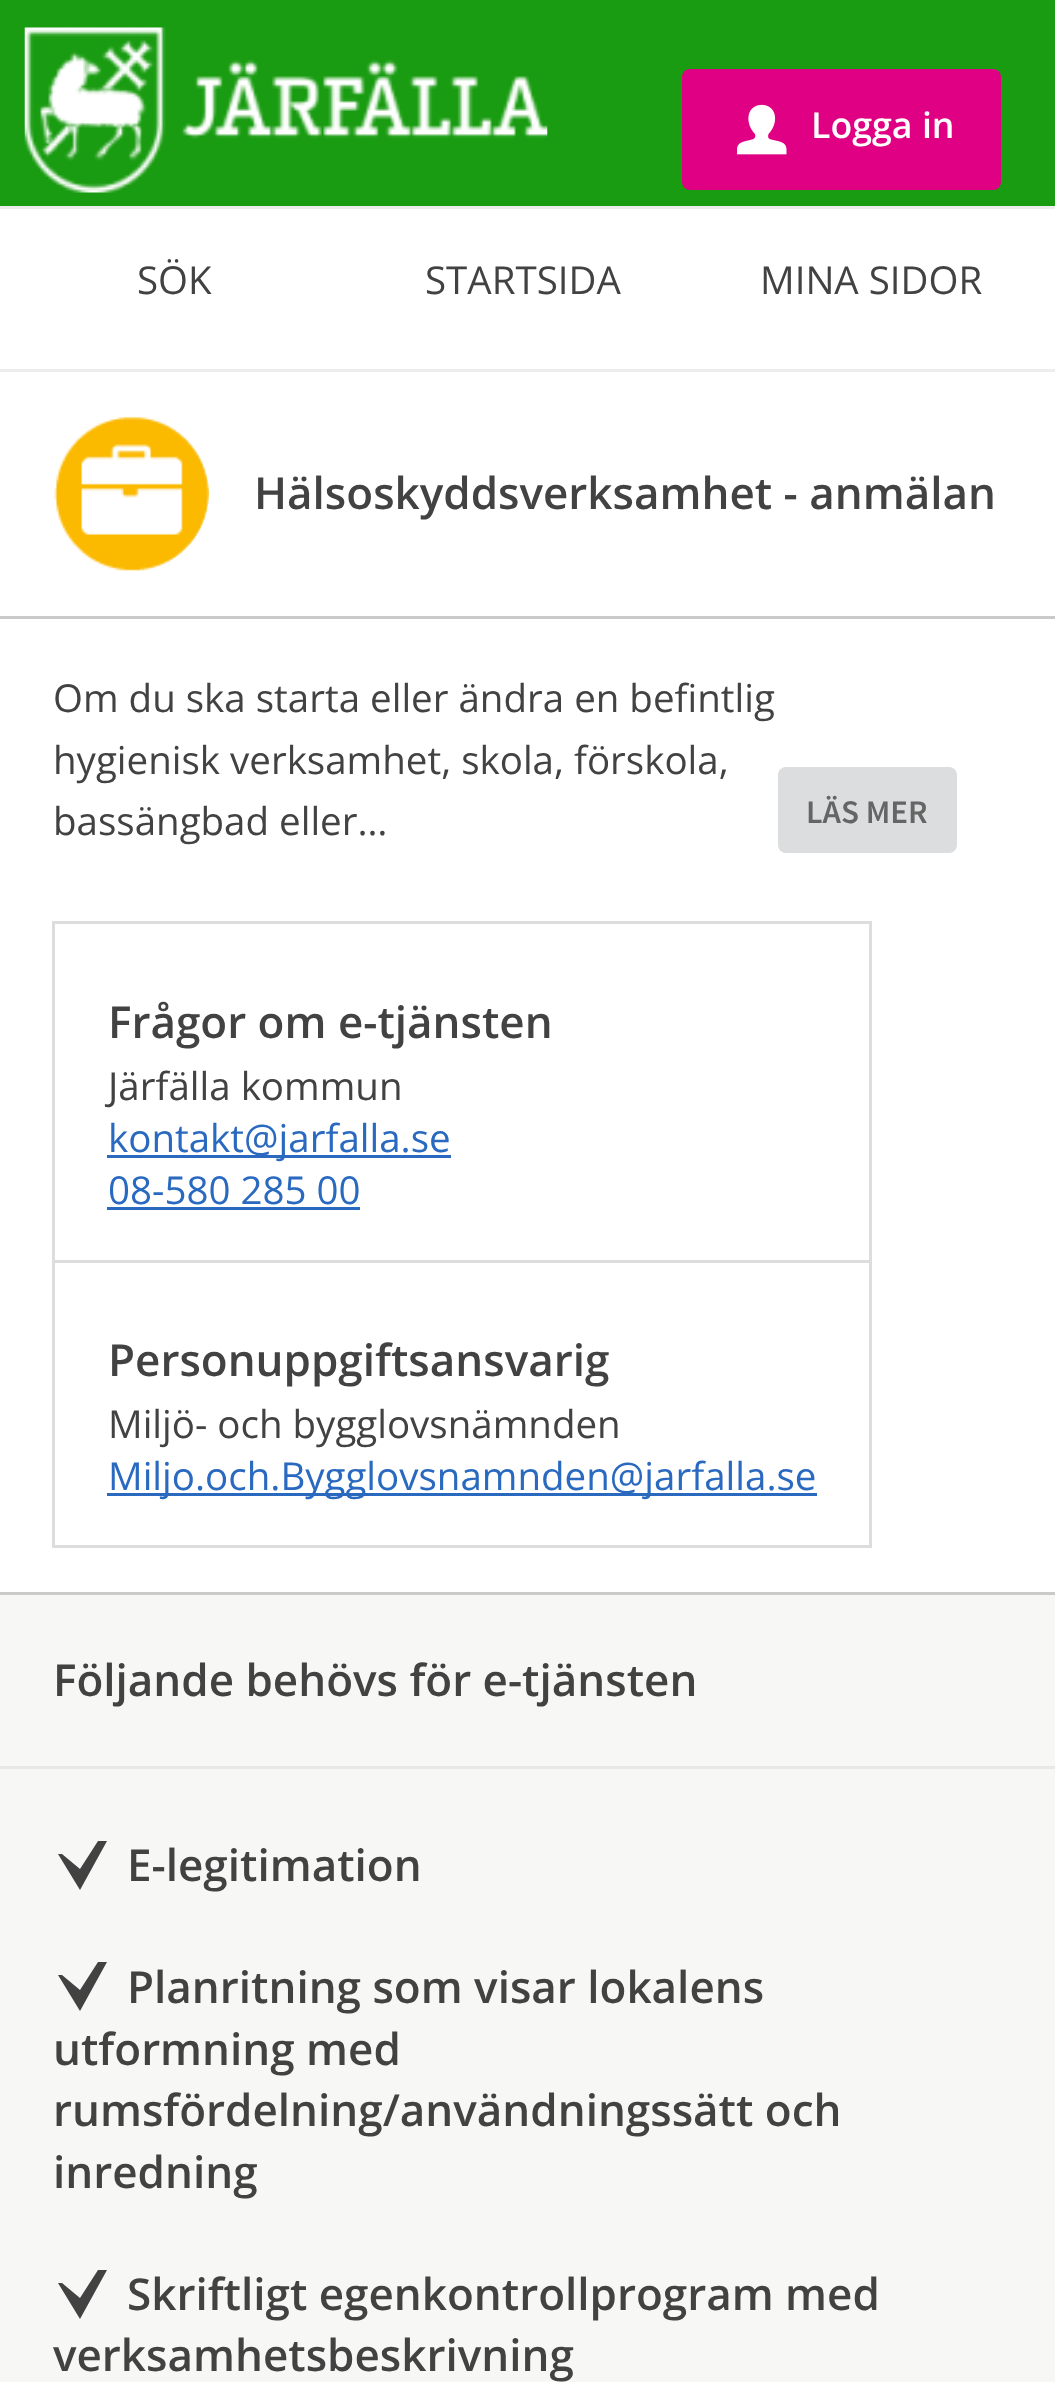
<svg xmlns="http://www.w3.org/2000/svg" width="1055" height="2382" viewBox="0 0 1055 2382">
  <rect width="100%" height="100%" fill="#fff"/>
  <path d="M0 0h1055v206H0z" fill="#1a9c12"/>
  <image x="24" y="27" width="524" height="166" href="img/1.png"/>
  <path d="M0 206h1055v3H0z" fill="#ededed"/>
  <path d="M0 369h1055v3H0z" fill="#ededed"/>
  <rect x="682" y="69" width="319" height="121" rx="8" fill="#e00083"/>
  <image x="737" y="104" width="50" height="51" href="img/2.png"/>
  <image x="54" y="416" width="155" height="155" href="img/3.png"/>
  <path d="M0 616h1055v3H0z" fill="#cacaca"/>
  <rect x="778" y="767" width="179" height="86" rx="8" fill="#dcddde"/>
  <path d="M53.5 922.5h817v624H53.5z" fill="none" stroke="#ddd" stroke-width="3"/>
  <path d="M107 1155h344v3H107z" fill="#2969bf"/>
  <path d="M107 1207h253v3H107z" fill="#2969bf"/>
  <path d="M55 1260h814v3H55z" fill="#ddd"/>
  <path d="M107 1493h710v3H107z" fill="#2969bf"/>
  <path d="M0 1595h1055v787H0z" fill="#f7f7f6"/>
  <path d="M0 1592h1055v3H0z" fill="#cacaca"/>
  <path d="M0 1766h1055v3H0z" fill="#e8e8e7"/>
  <path d="M58 1854L80 1890L107 1841H98L80 1869L62 1854Z" fill="#424242"/>
  <path d="M58 1975L80 2011L107 1962H98L80 1990L62 1975Z" fill="#424242"/>
  <path d="M58 2283L80 2319L107 2270H98L80 2298L62 2283Z" fill="#424242"/>
  <text x="811" y="138" font-family="Open Sans" font-size="35.75" font-weight="600" fill="#fff">Logga in</text>
  <g font-family="Open Sans" font-size="38.5" fill="#424242">
    <text x="137" y="294">SÖK</text>
    <text x="425" y="294">STARTSIDA</text>
    <text x="760" y="294">MINA SIDOR</text>
  </g>
  <text x="254" y="509" font-family="Open Sans" font-size="44" font-weight="600" fill="#424242">Hälsoskyddsverksamhet - anmälan</text>
  <g font-family="Open Sans" font-size="38.5" fill="#424242">
    <text x="53" y="712">Om du ska starta eller ändra en befintlig</text>
    <text x="53" y="774">hygienisk verksamhet, skola, förskola,</text>
    <text x="53" y="835">bassängbad eller…</text>
  </g>
  <text x="806" y="823" font-family="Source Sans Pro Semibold" font-size="33" font-weight="600" fill="#656565">LÄS MER</text>
  <text x="108" y="1038" font-family="Open Sans" font-size="44" font-weight="600" fill="#424242">Frågor om e-tjänsten</text>
  <text x="108" y="1100" font-family="Open Sans" font-size="38.5" fill="#424242">Järfälla kommun</text>
  <g font-family="Open Sans" font-size="38.5" fill="#2969bf">
    <text x="108" y="1152">kontakt@jarfalla.se</text>
    <text x="108" y="1204">08-580 285 00</text>
  </g>
  <text x="108" y="1376" font-family="Open Sans" font-size="44" font-weight="600" fill="#424242">Personuppgiftsansvarig</text>
  <text x="108" y="1438" font-family="Open Sans" font-size="38.5" fill="#424242">Miljö- och bygglovsnämnden</text>
  <text x="108" y="1490" font-family="Open Sans" font-size="38.5" fill="#2969bf">Miljo.och.Bygglovsnamnden@jarfalla.se</text>
  <g font-family="Open Sans" font-size="44" font-weight="600" fill="#424242">
    <text x="53" y="1696">Följande behövs för e-tjänsten</text>
    <text x="127" y="1881">E-legitimation</text>
    <text x="127" y="2003">Planritning som visar lokalens</text>
    <text x="53" y="2065">utformning med</text>
    <text x="53" y="2126">rumsfördelning/användningssätt och</text>
    <text x="53" y="2188">inredning</text>
    <text x="127" y="2310">Skriftligt egenkontrollprogram med</text>
    <text x="53" y="2371">verksamhetsbeskrivning</text>
  </g>
</svg>
